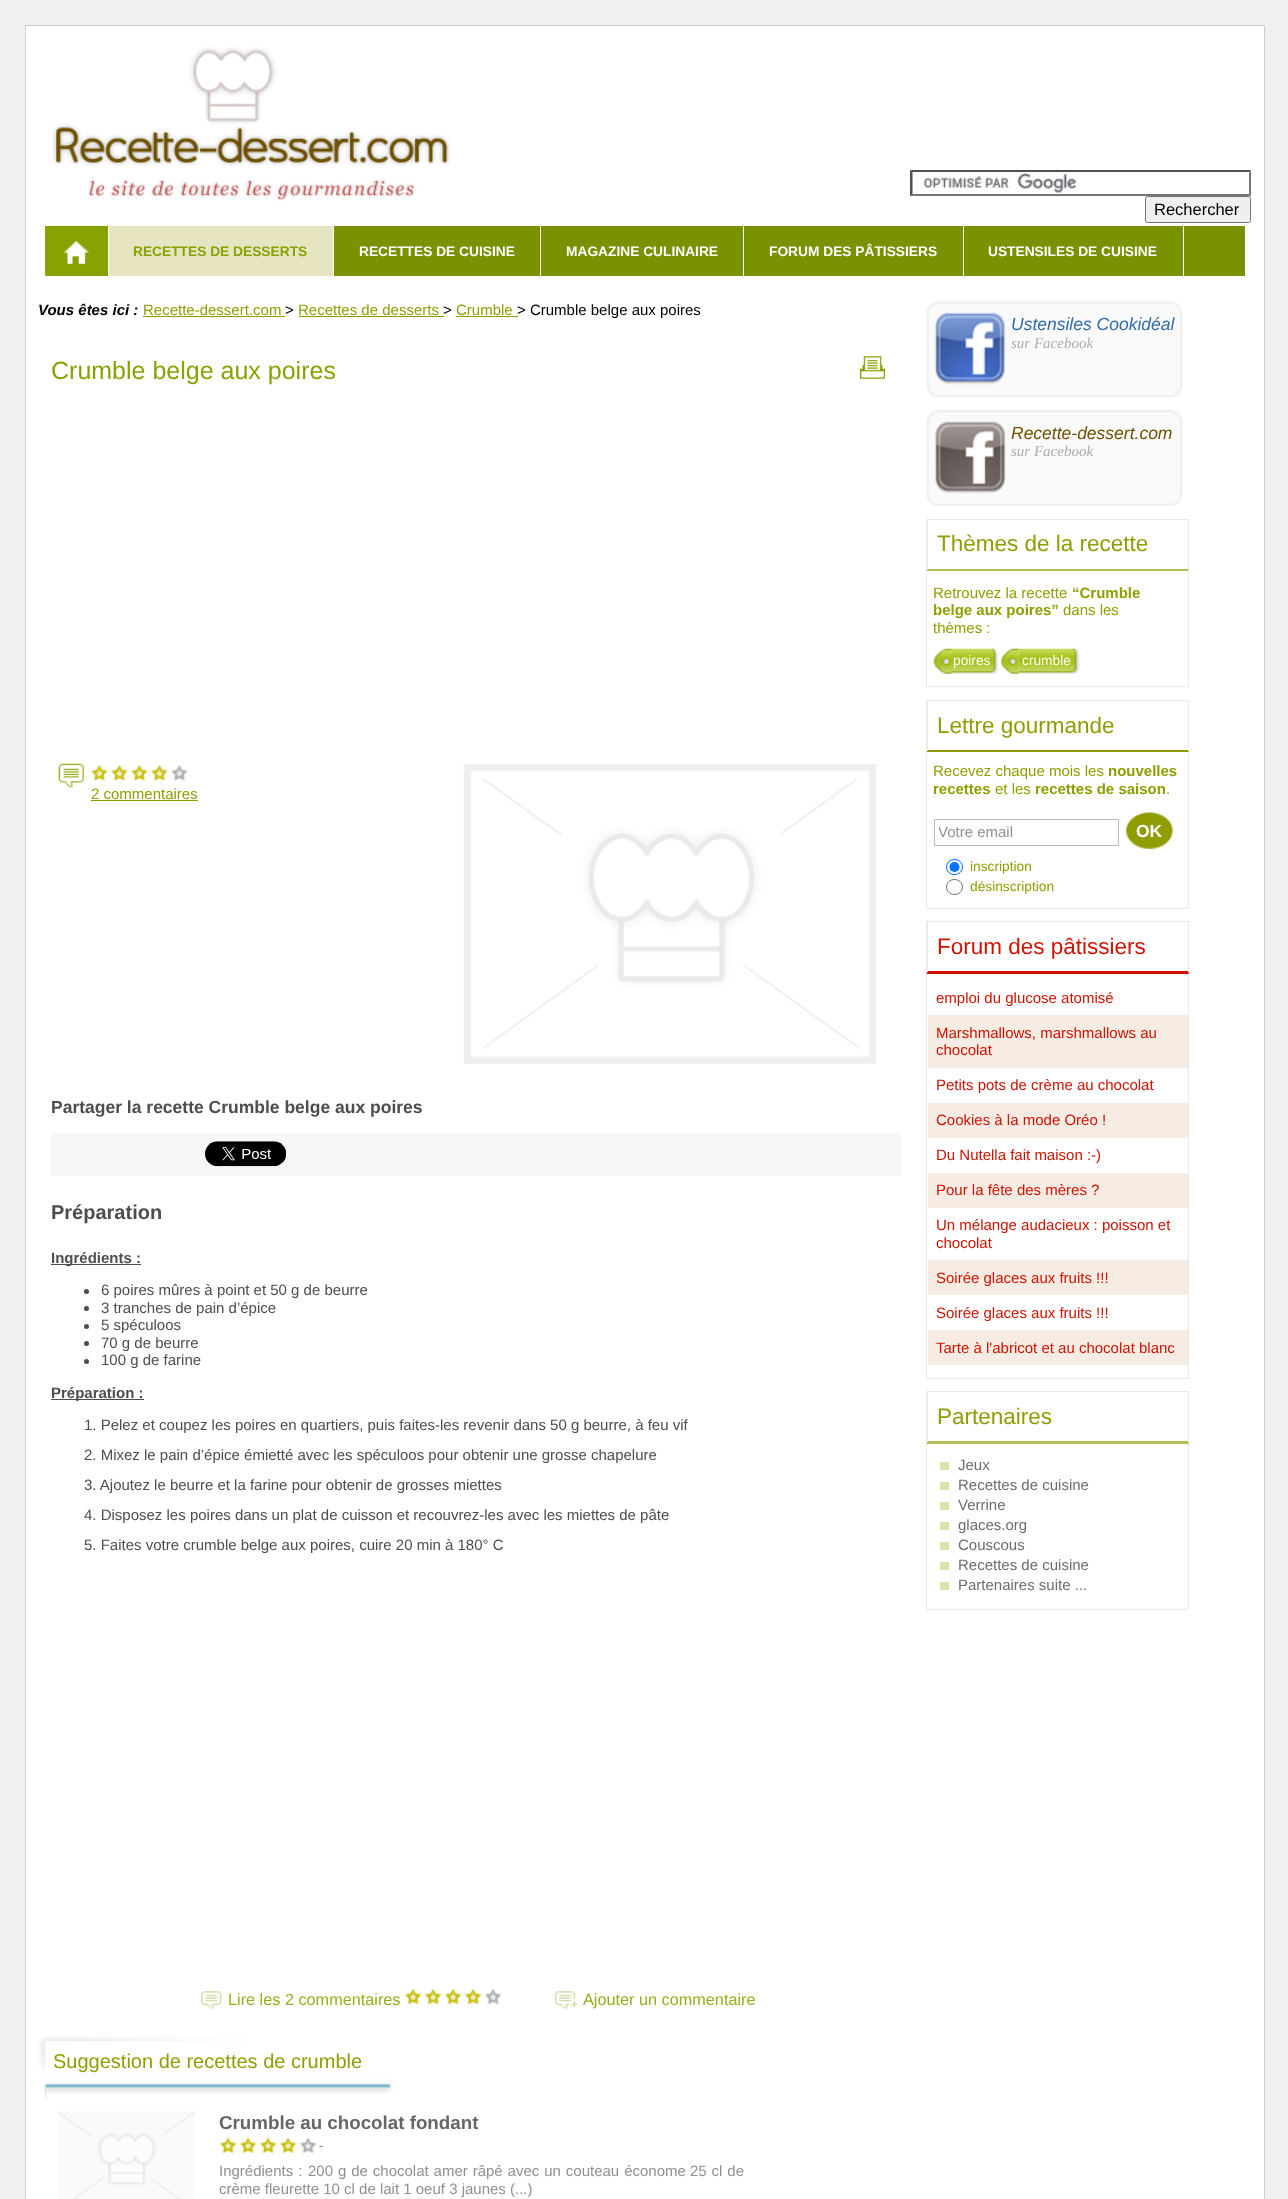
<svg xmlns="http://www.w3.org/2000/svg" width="1288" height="2199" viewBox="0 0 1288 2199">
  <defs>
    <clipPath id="clip1"><path d="M939 824h175v17H939z"/></clipPath>
  </defs>
  <rect width="100%" height="100%" fill="#f0f0f0"/>
  <path d="M25.5 25.5h1239v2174H25.5z" fill="#fff" stroke="#ccc"/>
  <image x="52" y="47" width="398" height="154" href="img/1.png"/>
  <image x="923" y="173" width="154" height="20" href="img/2.png"/>
  <path d="M910 170H1251L1249 172H912Z" fill="#4f4f4f"/>
  <path d="M1251 170V196L1249 194V172.5Z" fill="#767676"/>
  <path d="M1251 196H910L912 194H1249Z" fill="#767676"/>
  <path d="M910 196V170L912.5 172.5V194Z" fill="#4f4f4f"/>
  <rect x="1145.5" y="196.5" width="105" height="26" rx="2" fill="#efefef" stroke="#767676"/>
  <path d="M334 226h911v50H334z" fill="#789201"/>
  <path d="M45 226h63v50H45z" fill="#86a301"/>
  <image x="63" y="240" width="26" height="24" href="img/3.png"/>
  <path d="M109 226h224v50H109z" fill="#e7e5c1"/>
  <path d="M540 226h1v50H540z" fill="#fff"/>
  <path d="M743 226h1v50H743z" fill="#fff"/>
  <path d="M963 226h1v50H963z" fill="#fff"/>
  <path d="M1183 226h1v50H1183z" fill="#fff"/>
  <path d="M143 316h142v1H143z" fill="#909d01"/>
  <path d="M299 316h145v1H299z" fill="#909d01"/>
  <path d="M456 316h62v1H456z" fill="#909d01"/>
  <image x="860" y="356" width="25" height="23" href="img/4.png"/>
  <image x="58" y="763" width="26" height="25" href="img/5.png"/>
  <image x="91" y="765" width="97" height="17" href="img/6.png"/>
  <path d="M91 800h107v1H91z" fill="#909d01"/>
  <image x="463" y="763" width="414" height="301" href="img/7.png"/>
  <path d="M51 1133h850v43H51z" fill="#f6f6f6"/>
  <image x="205" y="1141" width="82" height="26" href="img/8.png"/>
  <path d="M51 1264h90v1H51z" fill="#4d4d4d"/>
  <circle cx="86.5" cy="1291.5" r="2.5" fill="#4d4d4d"/>
  <circle cx="86.5" cy="1308.5" r="2.5" fill="#4d4d4d"/>
  <circle cx="86.5" cy="1326.5" r="2.5" fill="#4d4d4d"/>
  <circle cx="86.5" cy="1343.5" r="2.5" fill="#4d4d4d"/>
  <circle cx="86.5" cy="1361.5" r="2.5" fill="#4d4d4d"/>
  <path d="M51 1399h93v1H51z" fill="#4d4d4d"/>
  <image x="201" y="1991" width="21" height="18" href="img/9.png"/>
  <image x="405" y="1988" width="97" height="17" href="img/10.png"/>
  <image x="555" y="1991" width="23" height="18" href="img/11.png"/>
  <image x="39" y="2036" width="354" height="63" href="img/12.png"/>
  <image x="57" y="2111" width="138" height="88" href="img/13.png"/>
  <image x="220" y="2137" width="97" height="17" href="img/14.png"/>
  <image x="926" y="301" width="257" height="97" href="img/15.png"/>
  <image x="926" y="410" width="257" height="96" href="img/16.png"/>
  <path d="M926 519h263v1H926z" fill="#ebeaea"/>
  <path d="M1189 519V571L1188 569V520Z" fill="#ebeaea"/>
  <path d="M1189 571H926L928 569H1188Z" fill="#b5be56"/>
  <path d="M926 571V519L928 520V569Z" fill="#ebeaea"/>
  <path d="M1188 571h1v117H1188z" fill="#ebeaea"/>
  <path d="M926 686h263v1H926z" fill="#ebeaea"/>
  <path d="M926 571h1v117H926z" fill="#ebeaea"/>
  <image x="933" y="648" width="20" height="26" href="img/17.png"/>
  <image x="951" y="648" width="48" height="26" href="img/18.png"/>
  <image x="1001" y="648" width="18" height="26" href="img/19.png"/>
  <image x="1018" y="648" width="62" height="26" href="img/20.png"/>
  <path d="M926 700h263v1H926z" fill="#ebeaea"/>
  <path d="M1189 700V752L1188 750V701Z" fill="#ebeaea"/>
  <path d="M1189 752H926L928 750H1188Z" fill="#909d01"/>
  <path d="M926 752V700L928 701V750Z" fill="#ebeaea"/>
  <path d="M1188 753h1v156H1188z" fill="#ebeaea"/>
  <path d="M926 908h263v1H926z" fill="#ebeaea"/>
  <path d="M926 753h1v156H926z" fill="#ebeaea"/>
  <path d="M934.5 819.5h184v26H934.5z" fill="none" stroke="#bcbbbb"/>
  <image x="1126" y="812" width="47" height="37" href="img/21.png"/>
  <rect x="946.5" y="859.5" width="16" height="15" rx="7.5" fill="none" stroke="#0075ff"/>
  <circle cx="954.5" cy="867" r="5" fill="#0075ff"/>
  <rect x="946.5" y="879.5" width="16" height="15" rx="7.5" fill="none" stroke="#767676"/>
  <path d="M926 921h263v1H926z" fill="#ebeaea"/>
  <path d="M1189 921V974L1188 971V922Z" fill="#ebeaea"/>
  <path d="M1189 974H926L928 971H1188Z" fill="#cf1201"/>
  <path d="M926 974V921L928 922V971Z" fill="#ebeaea"/>
  <path d="M1188 974h1v405H1188z" fill="#ebeaea"/>
  <path d="M926 1378h263v1H926z" fill="#ebeaea"/>
  <path d="M926 974h1v405H926z" fill="#ebeaea"/>
  <path d="M928 1015h260v53H928z" fill="#f6ece3"/>
  <path d="M928 1103h260v35H928z" fill="#f6ece3"/>
  <path d="M928 1173h260v35H928z" fill="#f6ece3"/>
  <path d="M928 1260h260v35H928z" fill="#f6ece3"/>
  <path d="M928 1330h260v35H928z" fill="#f6ece3"/>
  <path d="M926 1391h263v1H926z" fill="#ebeaea"/>
  <path d="M1189 1391V1444L1188 1441V1392Z" fill="#ebeaea"/>
  <path d="M1189 1444H926L928 1441H1188Z" fill="#b5be56"/>
  <path d="M926 1444V1391L928 1392V1441Z" fill="#ebeaea"/>
  <path d="M1188 1444h1v166H1188z" fill="#ebeaea"/>
  <path d="M926 1609h263v1H926z" fill="#ebeaea"/>
  <path d="M926 1444h1v166H926z" fill="#ebeaea"/>
  <path d="M940 1462h9v8H940z" fill="#dce2aa"/>
  <path d="M940 1482h9v8H940z" fill="#dce2aa"/>
  <path d="M940 1502h9v8H940z" fill="#dce2aa"/>
  <path d="M940 1522h9v8H940z" fill="#dce2aa"/>
  <path d="M940 1542h9v8H940z" fill="#dce2aa"/>
  <path d="M940 1562h9v8H940z" fill="#dce2aa"/>
  <path d="M940 1582h9v8H940z" fill="#dce2aa"/>
  <text x="1154" y="215" font-family="Liberation Sans" font-size="16.5" fill="#000">Rechercher</text>
  <text x="133" y="256" font-family="Liberation Sans" font-size="13.75" font-weight="bold" fill="#86a301">RECETTES DE DESSERTS</text>
  <g font-family="Liberation Sans" font-size="13.75" font-weight="bold" fill="#fff">
    <text x="359" y="256">RECETTES DE CUISINE</text>
    <text x="566" y="256">MAGAZINE CULINAIRE</text>
    <text x="769" y="256">FORUM DES PÂTISSIERS</text>
    <text x="988" y="256">USTENSILES DE CUISINE</text>
  </g>
  <text x="38" y="315" font-family="Liberation Sans" font-size="15" font-weight="bold" font-style="italic" fill="#000">Vous êtes ici :</text>
  <text x="143" y="315" font-family="Liberation Sans" font-size="15" fill="#909d01">Recette-dessert.com</text>
  <text x="285" y="315" font-family="Liberation Sans" font-size="15" fill="#000">&gt;</text>
  <text x="298" y="315" font-family="Liberation Sans" font-size="15" fill="#909d01">Recettes de desserts</text>
  <text x="443" y="315" font-family="Liberation Sans" font-size="15" fill="#000">&gt;</text>
  <text x="456" y="315" font-family="Liberation Sans" font-size="15" fill="#909d01">Crumble</text>
  <text x="517" y="315" font-family="Liberation Sans" font-size="15" fill="#000">&gt; Crumble belge aux poires</text>
  <text x="51" y="379" font-family="Liberation Sans" font-size="25" fill="#86a301">Crumble belge aux poires</text>
  <text x="91" y="799" font-family="Liberation Sans" font-size="15" fill="#909d01">2 commentaires</text>
  <text x="51" y="1113" font-family="Liberation Sans" font-size="17.5" font-weight="bold" fill="#4d4d4d">Partager la recette Crumble belge aux poires</text>
  <text x="51" y="1219" font-family="Liberation Sans" font-size="20" font-weight="bold" fill="#4d4d4d">Préparation</text>
  <text x="51" y="1263" font-family="Liberation Sans" font-size="15" font-weight="bold" fill="#4d4d4d">Ingrédients :</text>
  <g font-family="Liberation Sans" font-size="15" fill="#4d4d4d">
    <text x="101" y="1295">6 poires mûres à point et 50 g de beurre</text>
    <text x="101" y="1313">3 tranches de pain d’épice</text>
    <text x="101" y="1330">5 spéculoos</text>
    <text x="101" y="1348">70 g de beurre</text>
    <text x="101" y="1365">100 g de farine</text>
  </g>
  <text x="51" y="1398" font-family="Liberation Sans" font-size="15" font-weight="bold" fill="#4d4d4d">Préparation :</text>
  <g font-family="Liberation Sans" font-size="15" fill="#4d4d4d">
    <text x="84" y="1430">1. Pelez et coupez les poires en quartiers, puis faites-les revenir dans 50 g beurre, à feu vif</text>
    <text x="84" y="1460">2. Mixez le pain d’épice émietté avec les spéculoos pour obtenir une grosse chapelure</text>
    <text x="84" y="1490">3. Ajoutez le beurre et la farine pour obtenir de grosses miettes</text>
    <text x="84" y="1520">4. Disposez les poires dans un plat de cuisson et recouvrez-les avec les miettes de pâte</text>
    <text x="84" y="1550">5. Faites votre crumble belge aux poires, cuire 20 min à 180° C</text>
  </g>
  <g font-family="Liberation Sans" font-size="16.25" fill="#94ae1c">
    <text x="228" y="2005">Lire les 2 commentaires</text>
    <text x="583" y="2005">Ajouter un commentaire</text>
  </g>
  <text x="53" y="2068" font-family="Liberation Sans" font-size="20" fill="#909d01">Suggestion de recettes de crumble</text>
  <text x="219" y="2129" font-family="Liberation Sans" font-size="18.75" font-weight="bold" fill="#666">Crumble au chocolat fondant</text>
  <text x="319" y="2150" font-family="Liberation Sans" font-size="13.75" fill="#919091">-</text>
  <g font-family="Liberation Sans" font-size="15" fill="#919091">
    <text x="219" y="2176" word-spacing="0.75">Ingrédients :</text>
    <text x="308" y="2176" word-spacing="0.75">200 g de chocolat amer râpé avec un couteau économe</text>
    <text x="690" y="2176" word-spacing="0.75">25 cl de</text>
    <text x="219" y="2194">crème fleurette 10 cl de lait 1 oeuf 3 jaunes (...)</text>
  </g>
  <text x="1011" y="330" font-family="Liberation Sans" font-size="17.5" font-style="italic" fill="#316bac">Ustensiles Cookidéal</text>
  <text x="1011" y="348" font-family="Liberation Serif" font-size="15" font-style="italic" fill="#acacac">sur Facebook</text>
  <text x="1011" y="439" font-family="Liberation Sans" font-size="17.5" font-style="italic" fill="#6d5001">Recette-dessert.com</text>
  <text x="1011" y="456" font-family="Liberation Serif" font-size="15" font-style="italic" fill="#acacac">sur Facebook</text>
  <text x="937" y="551" font-family="Liberation Sans" font-size="22.5" fill="#909d01">Thèmes de la recette</text>
  <text x="933" y="598" font-family="Liberation Sans" font-size="15" fill="#909d01">Retrouvez la recette</text>
  <g font-family="Liberation Sans" font-size="15" font-weight="bold" fill="#909d01">
    <text x="1072" y="598">“Crumble</text>
    <text x="933" y="615">belge aux poires”</text>
  </g>
  <g font-family="Liberation Sans" font-size="15" fill="#909d01">
    <text x="1063" y="615">dans les</text>
    <text x="933" y="633">thèmes :</text>
  </g>
  <g font-family="Liberation Sans" font-size="13.75" fill="#fff">
    <text x="953" y="665">poires</text>
    <text x="1022" y="665">crumble</text>
  </g>
  <text x="937" y="733" font-family="Liberation Sans" font-size="22.5" fill="#909d01">Lettre gourmande</text>
  <text x="933" y="776" font-family="Liberation Sans" font-size="15" fill="#909d01">Recevez chaque mois les</text>
  <g font-family="Liberation Sans" font-size="15" font-weight="bold" fill="#909d01">
    <text x="1108" y="776">nouvelles</text>
    <text x="933" y="794">recettes</text>
  </g>
  <text x="995" y="794" font-family="Liberation Sans" font-size="15" fill="#909d01">et les</text>
  <text x="1035" y="794" font-family="Liberation Sans" font-size="15" font-weight="bold" fill="#909d01">recettes de saison</text>
  <text x="1166" y="794" font-family="Liberation Sans" font-size="15" fill="#909d01">.</text>
  <g clip-path="url(#clip1)">
    <text x="938" y="837" font-family="Liberation Sans" font-size="15" fill="#919091">Votre email</text>
  </g>
  <text x="1136" y="837" font-family="Liberation Sans" font-size="17.5" font-weight="bold" fill="#fff">OK</text>
  <g font-family="Liberation Sans" font-size="13.75" fill="#909d01">
    <text x="970" y="871">inscription</text>
    <text x="970" y="891">désinscription</text>
  </g>
  <text x="937" y="954" font-family="Liberation Sans" font-size="22.5" fill="#cf1201">Forum des pâtissiers</text>
  <g font-family="Liberation Sans" font-size="15" fill="#cf1201">
    <text x="936" y="1003">emploi du glucose atomisé</text>
    <text x="936" y="1038">Marshmallows, marshmallows au</text>
    <text x="936" y="1055">chocolat</text>
    <text x="936" y="1090">Petits pots de crème au chocolat</text>
    <text x="936" y="1125">Cookies à la mode Oréo !</text>
    <text x="936" y="1160">Du Nutella fait maison :-)</text>
    <text x="936" y="1195">Pour la fête des mères ?</text>
    <text x="936" y="1230">Un mélange audacieux : poisson et</text>
    <text x="936" y="1248">chocolat</text>
    <text x="936" y="1283">Soirée glaces aux fruits !!!</text>
    <text x="936" y="1318">Soirée glaces aux fruits !!!</text>
    <text x="936" y="1353">Tarte à l'abricot et au chocolat blanc</text>
  </g>
  <text x="937" y="1424" font-family="Liberation Sans" font-size="22.5" fill="#909d01">Partenaires</text>
  <g font-family="Liberation Sans" font-size="15" fill="#6d6c6c">
    <text x="958" y="1470">Jeux</text>
    <text x="958" y="1490">Recettes de cuisine</text>
    <text x="958" y="1510">Verrine</text>
    <text x="958" y="1530">glaces.org</text>
    <text x="958" y="1550">Couscous</text>
    <text x="958" y="1570">Recettes de cuisine</text>
    <text x="958" y="1590">Partenaires suite ...</text>
  </g>
</svg>
